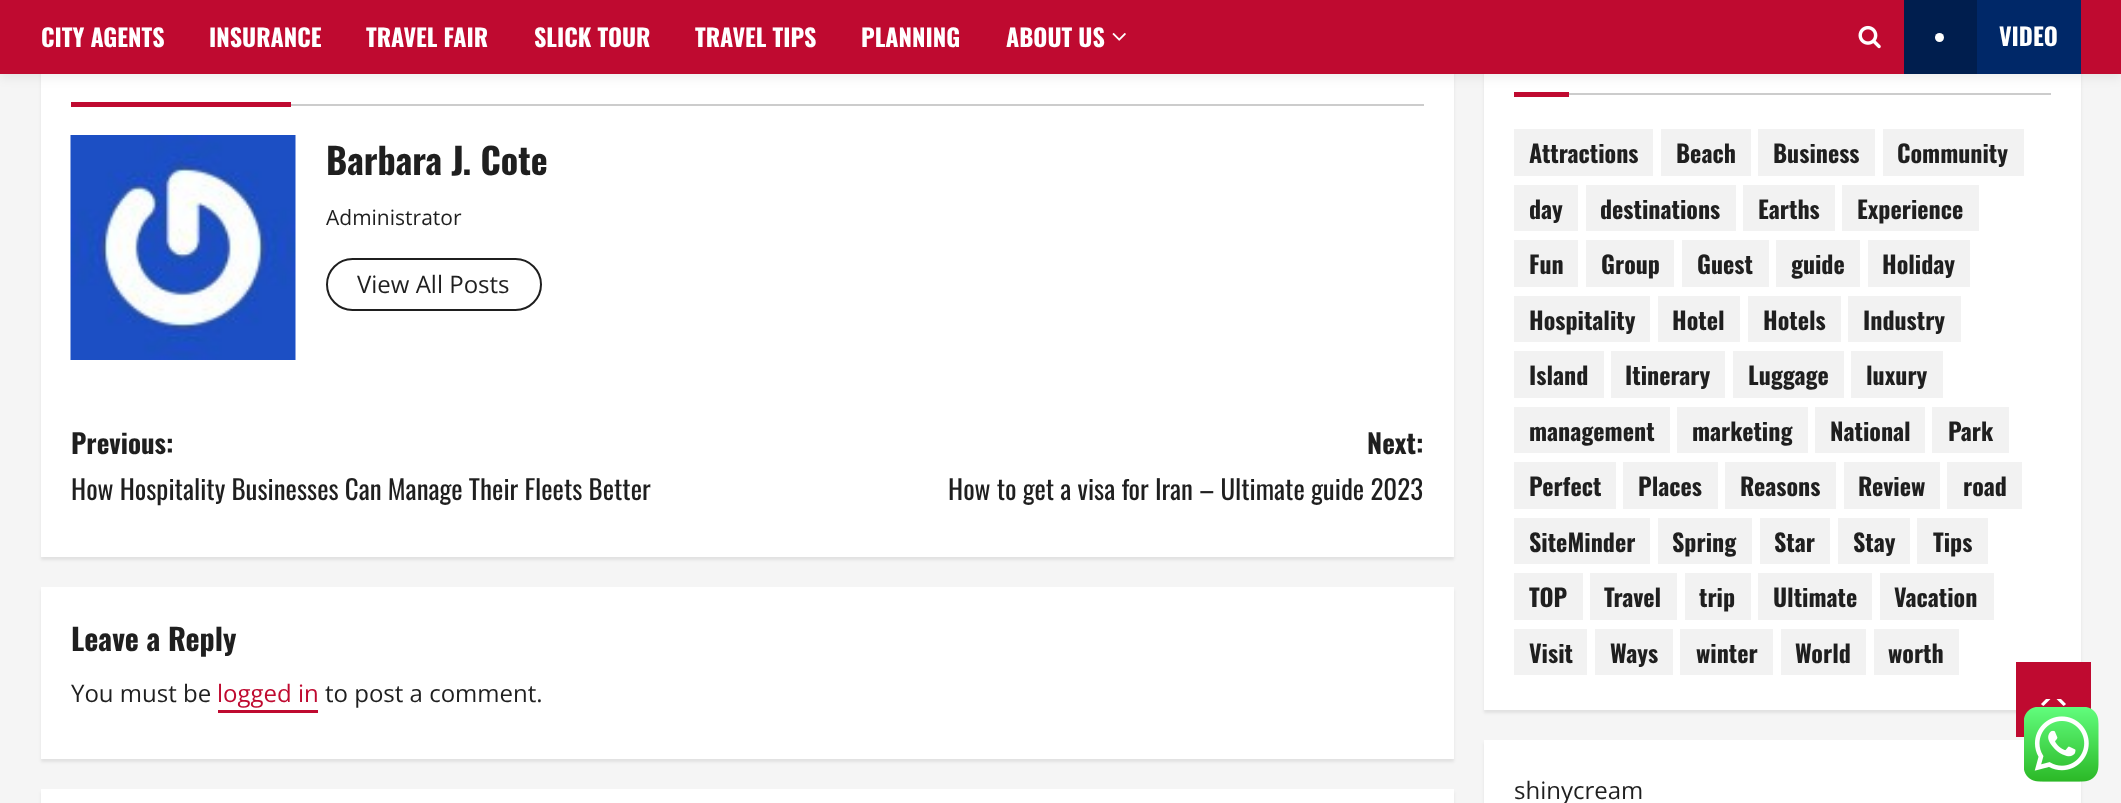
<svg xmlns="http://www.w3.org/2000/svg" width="2121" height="803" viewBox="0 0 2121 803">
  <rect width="100%" height="100%" fill="#f5f5f5"/>
  <path d="M41 -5h1413v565H41z" fill="#00000014" filter="blur(1.5px)"/>
  <path d="M41 74h1413v483H41z" fill="#fff"/>
  <path d="M1484 18h597v695H1484z" fill="#00000014" filter="blur(1.5px)"/>
  <path d="M1484 74h597v636H1484z" fill="#fff"/>
  <path d="M1569 93h482v2H1569z" fill="#ccc"/>
  <path d="M1514 92h55v5H1514z" fill="#bf0a30"/>
  <path d="M0 3h2121v74H0z" fill="#00000014" filter="blur(6px)"/>
  <path d="M0 0h2121v74H0z" fill="#bf0a30"/>
  <image x="1112" y="33" width="14" height="8" href="img/1.png"/>
  <image x="1858" y="25" width="23" height="24" href="img/2.png"/>
  <path d="M1977 0h104v74H1977z" fill="#002868"/>
  <path d="M1904 0h73v74H1904z" fill="#001e4e"/>
  <circle cx="1939.5" cy="37.5" r="4.5" fill="#fff"/>
  <path d="M291 104h1133v2H291z" fill="#ccc"/>
  <path d="M71 102h220v5H71z" fill="#bf0a30"/>
  <image x="70" y="135" width="226" height="225" href="img/3.png"/>
  <rect x="327" y="259" width="214" height="51" rx="25.5" fill="none" stroke="#1f1f1f" stroke-width="2"/>
  <path d="M41 590h1413v172H41z" fill="#00000014" filter="blur(1.5px)"/>
  <path d="M41 587h1413v172H41z" fill="#fff"/>
  <path d="M218 710h100v3H218z" fill="#bf0a30"/>
  <path d="M41 792h1413v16H41z" fill="#00000014" filter="blur(1.5px)"/>
  <path d="M41 789h1413v14H41z" fill="#fff"/>
  <path d="M1514 129h139v47H1514z" fill="#f2f2f2"/>
  <path d="M1661 129h90v47H1661z" fill="#f2f2f2"/>
  <path d="M1758 129h117v47H1758z" fill="#f2f2f2"/>
  <path d="M1883 129h141v47H1883z" fill="#f2f2f2"/>
  <path d="M1514 185h64v46H1514z" fill="#f2f2f2"/>
  <path d="M1586 185h150v46H1586z" fill="#f2f2f2"/>
  <path d="M1743 185h92v46H1743z" fill="#f2f2f2"/>
  <path d="M1842 185h137v46H1842z" fill="#f2f2f2"/>
  <path d="M1514 240h64v47H1514z" fill="#f2f2f2"/>
  <path d="M1586 240h88v47H1586z" fill="#f2f2f2"/>
  <path d="M1682 240h87v47H1682z" fill="#f2f2f2"/>
  <path d="M1776 240h84v47H1776z" fill="#f2f2f2"/>
  <path d="M1868 240h102v47H1868z" fill="#f2f2f2"/>
  <path d="M1514 296h136v46H1514z" fill="#f2f2f2"/>
  <path d="M1658 296h82v46H1658z" fill="#f2f2f2"/>
  <path d="M1748 296h93v46H1748z" fill="#f2f2f2"/>
  <path d="M1848 296h113v46H1848z" fill="#f2f2f2"/>
  <path d="M1514 351h90v47H1514z" fill="#f2f2f2"/>
  <path d="M1611 351h114v47H1611z" fill="#f2f2f2"/>
  <path d="M1733 351h111v47H1733z" fill="#f2f2f2"/>
  <path d="M1851 351h92v47H1851z" fill="#f2f2f2"/>
  <path d="M1514 407h156v46H1514z" fill="#f2f2f2"/>
  <path d="M1677 407h131v46H1677z" fill="#f2f2f2"/>
  <path d="M1815 407h110v46H1815z" fill="#f2f2f2"/>
  <path d="M1932 407h77v46H1932z" fill="#f2f2f2"/>
  <path d="M1514 462h102v47H1514z" fill="#f2f2f2"/>
  <path d="M1623 462h95v47H1623z" fill="#f2f2f2"/>
  <path d="M1725 462h111v47H1725z" fill="#f2f2f2"/>
  <path d="M1844 462h96v47H1844z" fill="#f2f2f2"/>
  <path d="M1947 462h75v47H1947z" fill="#f2f2f2"/>
  <path d="M1514 518h136v46H1514z" fill="#f2f2f2"/>
  <path d="M1658 518h94v46H1658z" fill="#f2f2f2"/>
  <path d="M1760 518h70v46H1760z" fill="#f2f2f2"/>
  <path d="M1838 518h72v46H1838z" fill="#f2f2f2"/>
  <path d="M1917 518h71v46H1917z" fill="#f2f2f2"/>
  <path d="M1514 573h69v47H1514z" fill="#f2f2f2"/>
  <path d="M1590 573h87v47H1590z" fill="#f2f2f2"/>
  <path d="M1685 573h66v47H1685z" fill="#f2f2f2"/>
  <path d="M1758 573h114v47H1758z" fill="#f2f2f2"/>
  <path d="M1880 573h114v47H1880z" fill="#f2f2f2"/>
  <path d="M1514 629h73v46H1514z" fill="#f2f2f2"/>
  <path d="M1595 629h78v46H1595z" fill="#f2f2f2"/>
  <path d="M1680 629h93v46H1680z" fill="#f2f2f2"/>
  <path d="M1781 629h85v46H1781z" fill="#f2f2f2"/>
  <path d="M1874 629h85v46H1874z" fill="#f2f2f2"/>
  <path d="M1484 743h597v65H1484z" fill="#00000014" filter="blur(1.5px)"/>
  <path d="M1484 740h597v63H1484z" fill="#fff"/>
  <path d="M2016 662h75v75H2016z" fill="#bf0a30"/>
  <path d="M2046 706.5H2061C2063 706.5 2065 705.5 2066 704L2061 699H2046L2041 704C2042 705.5 2044 706.5 2046 706.5Z" fill="#fff"/>
  <path d="M2068.5 711H2038.5L2053.5 696Z" fill="#bf0a30"/>
  <image x="2024" y="707" width="75" height="75" href="img/4.png"/>
  <g font-family="Oswald" font-size="24" font-weight="bold" fill="#fff">
    <text x="41" y="47">CITY AGENTS</text>
    <text x="209" y="47">INSURANCE</text>
    <text x="366" y="47">TRAVEL FAIR</text>
    <text x="534" y="47">SLICK TOUR</text>
    <text x="695" y="47">TRAVEL TIPS</text>
    <text x="861" y="47">PLANNING</text>
    <text x="1006" y="47">ABOUT US</text>
    <text x="1999" y="46">VIDEO</text>
  </g>
  <text x="326" y="175" font-family="Oswald" font-size="36" font-weight="bold" fill="#1f1f1f">Barbara J. Cote</text>
  <text x="326" y="225" font-family="Open Sans" font-size="21" fill="#1f1f1f">Administrator</text>
  <text x="357" y="293" font-family="Open Sans" font-size="24" fill="#1f1f1f">View All Posts</text>
  <text x="71" y="454" font-family="Oswald" font-size="27" font-weight="bold" fill="#1f1f1f">Previous:</text>
  <text x="71" y="500" font-family="Oswald" font-size="27" fill="#1f1f1f">How Hospitality Businesses Can Manage Their Fleets Better</text>
  <text x="1367" y="454" font-family="Oswald" font-size="27" font-weight="bold" fill="#1f1f1f">Next:</text>
  <text x="948" y="500" font-family="Oswald" font-size="27" fill="#1f1f1f">How to get a visa for Iran – Ultimate guide 2023</text>
  <text x="71" y="651" font-family="Oswald" font-size="30" font-weight="bold" fill="#1f1f1f">Leave a Reply</text>
  <text x="71" y="702" font-family="Open Sans" font-size="24" fill="#1f1f1f">You must be</text>
  <text x="217" y="702" font-family="Open Sans" font-size="24" fill="#bf0a30">logged in</text>
  <text x="325" y="702" font-family="Open Sans" font-size="24" fill="#1f1f1f">to post a comment.</text>
  <g font-family="Oswald" font-size="24" font-weight="bold" fill="#1f1f1f">
    <text x="1529" y="163">Attractions</text>
    <text x="1676" y="163">Beach</text>
    <text x="1773" y="163">Business</text>
    <text x="1897" y="163">Community</text>
    <text x="1529" y="219">day</text>
    <text x="1600" y="219">destinations</text>
    <text x="1758" y="219">Earths</text>
    <text x="1857" y="219">Experience</text>
    <text x="1529" y="274">Fun</text>
    <text x="1601" y="274">Group</text>
    <text x="1697" y="274">Guest</text>
    <text x="1791" y="274">guide</text>
    <text x="1882" y="274">Holiday</text>
    <text x="1529" y="330">Hospitality</text>
    <text x="1672" y="330">Hotel</text>
    <text x="1763" y="330">Hotels</text>
    <text x="1863" y="330">Industry</text>
    <text x="1529" y="385">Island</text>
    <text x="1625" y="385">Itinerary</text>
    <text x="1748" y="385">Luggage</text>
    <text x="1866" y="385">luxury</text>
    <text x="1529" y="441">management</text>
    <text x="1692" y="441">marketing</text>
    <text x="1830" y="441">National</text>
    <text x="1948" y="441">Park</text>
    <text x="1529" y="496">Perfect</text>
    <text x="1638" y="496">Places</text>
    <text x="1740" y="496">Reasons</text>
    <text x="1858" y="496">Review</text>
    <text x="1963" y="496">road</text>
    <text x="1529" y="552">SiteMinder</text>
    <text x="1672" y="552">Spring</text>
    <text x="1774" y="552">Star</text>
    <text x="1853" y="552">Stay</text>
    <text x="1933" y="552">Tips</text>
    <text x="1529" y="607">TOP</text>
    <text x="1604" y="607">Travel</text>
    <text x="1699" y="607">trip</text>
    <text x="1773" y="607">Ultimate</text>
    <text x="1894" y="607">Vacation</text>
    <text x="1529" y="663">Visit</text>
    <text x="1610" y="663">Ways</text>
    <text x="1696" y="663">winter</text>
    <text x="1795" y="663">World</text>
    <text x="1888" y="663">worth</text>
  </g>
  <text x="1514" y="799" font-family="Open Sans" font-size="24" fill="#1f1f1f">shinycream</text>
</svg>
